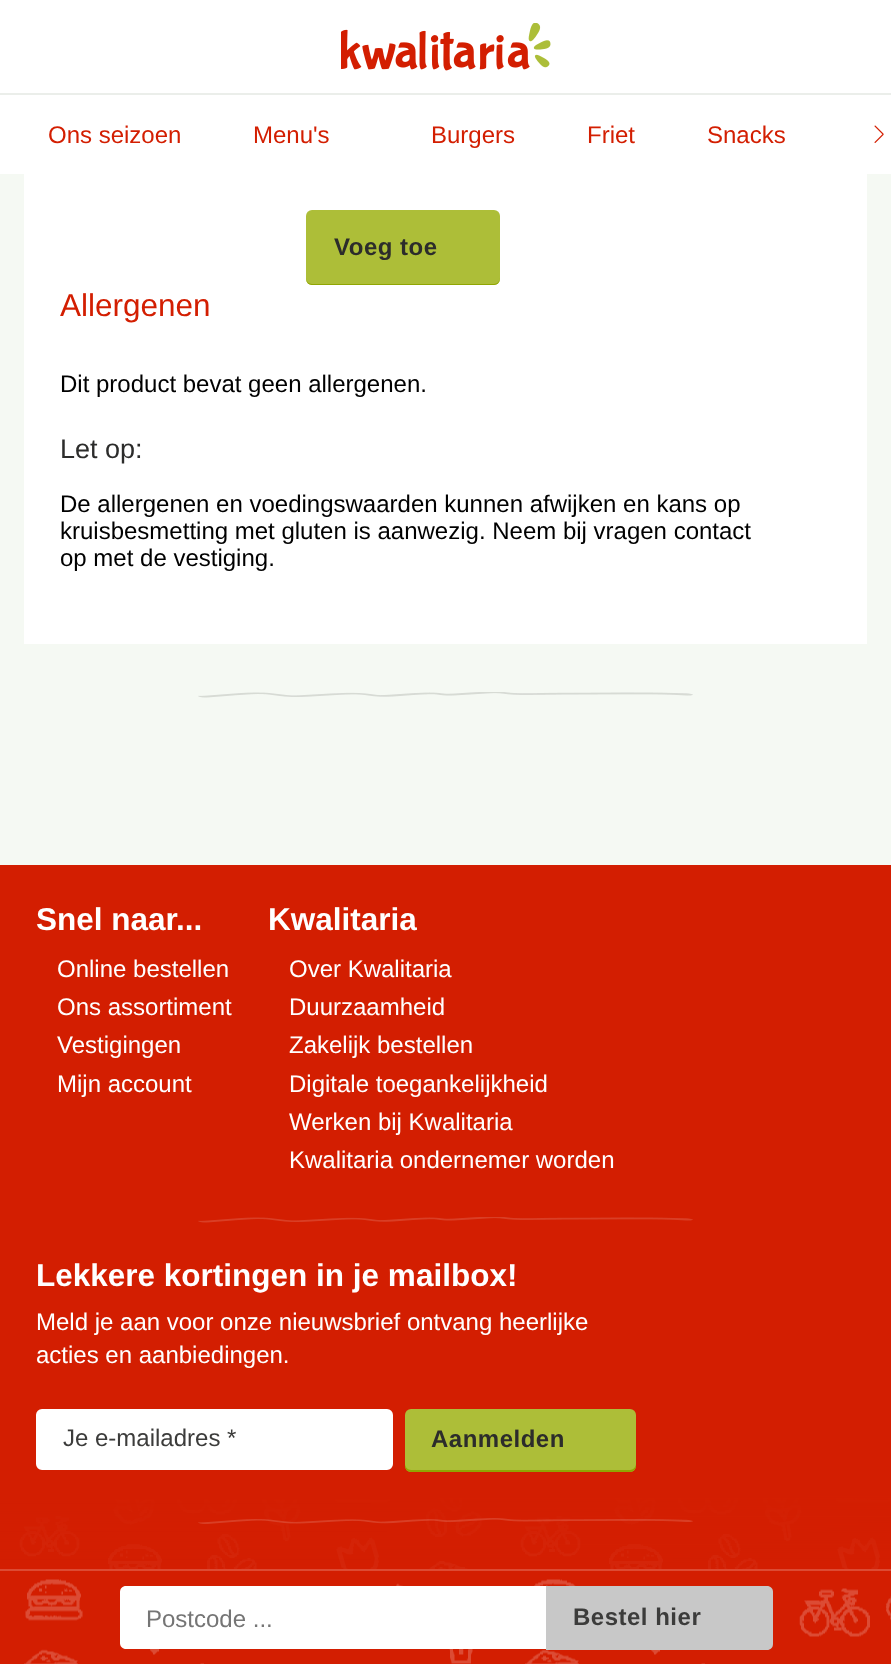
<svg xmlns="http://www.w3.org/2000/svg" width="891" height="1664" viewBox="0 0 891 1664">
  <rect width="100%" height="100%" fill="#f5f9f3"/>
  <path d="M0 0h891v174H0z" fill="#fff"/>
  <image x="341" y="23" width="210" height="48" href="img/1.png"/>
  <path d="M0 93h891v2H0z" fill="#ebeeea"/>
  <image x="874" y="125" width="10" height="18" href="img/2.png"/>
  <path d="M24 174h843v470H24z" fill="#fff"/>
  <rect x="306" y="210" width="194" height="75" rx="6" fill="#adbe38"/>
  <path d="M306 278V279C306 282 309 285 312 285H494C497 285 500 282 500 279V278C500 281 497 284 494 284H312C309 284 306 281 306 278Z" fill="#90a602"/>
  <image x="198" y="692" width="495" height="6" href="img/3.png"/>
  <image x="0" y="865" width="891" height="704" href="img/4.png"/>
  <image x="198" y="1217" width="495" height="6" href="img/5.png"/>
  <rect x="37" y="1410" width="355" height="59" rx="5" fill="#fff" stroke="#fff" stroke-width="2"/>
  <rect x="405" y="1409" width="231" height="63" rx="6" fill="#adbe38"/>
  <path d="M405 1464V1466C405 1469 408 1472 411 1472H630C633 1472 636 1469 636 1466V1464C636 1467 633 1470 630 1470H411C408 1470 405 1467 405 1464Z" fill="#90a602"/>
  <image x="198" y="1518" width="495" height="6" href="img/6.png"/>
  <path d="M0 1571h891v93H0z" fill="#d31e01"/>
  <image x="24" y="1579" width="867" height="85" href="img/7.png"/>
  <path d="M0 1569h891v2H0z" fill="#dc4b34"/>
  <path d="M126 1586H546V1649H126C122.5 1649 120 1646.5 120 1643V1592C120 1588.5 122.5 1586 126 1586Z" fill="#fff"/>
  <path d="M546 1586H767C770.5 1586 773 1588.5 773 1592V1644C773 1647.5 770.5 1650 767 1650H546Z" fill="#c8c8c8"/>
  <g font-family="Liberation Sans" font-size="24" fill="#d31e01">
    <text x="48" y="143">Ons seizoen</text>
    <text x="253" y="143">Menu's</text>
    <text x="431" y="143">Burgers</text>
    <text x="587" y="143">Friet</text>
    <text x="707" y="143">Snacks</text>
  </g>
  <text x="334" y="255" font-family="Liberation Sans" font-size="24" font-weight="bold" letter-spacing="0.5" fill="#2c2c2b">Voeg toe</text>
  <text x="60" y="316" font-family="Liberation Sans" font-size="31.5" fill="#d31e01">Allergenen</text>
  <text x="60" y="392" font-family="Liberation Sans" font-size="24" fill="#000">Dit product bevat geen allergenen.</text>
  <text x="60" y="458" font-family="Liberation Sans" font-size="27" fill="#2c2c2b">Let op:</text>
  <g font-family="Liberation Sans" font-size="24" fill="#000">
    <text x="60" y="512">De allergenen en voedingswaarden kunnen afwijken en kans op</text>
    <text x="60" y="539">kruisbesmetting met gluten is aanwezig. Neem bij vragen contact</text>
    <text x="60" y="566">op met de vestiging.</text>
  </g>
  <text x="36" y="930" font-family="Liberation Sans" font-size="31.5" font-weight="bold" fill="#fff">Snel naar...</text>
  <g font-family="Liberation Sans" font-size="24" fill="#fff">
    <text x="57" y="977">Online bestellen</text>
    <text x="57" y="1015">Ons assortiment</text>
    <text x="57" y="1053">Vestigingen</text>
    <text x="57" y="1092">Mijn account</text>
  </g>
  <text x="268" y="930" font-family="Liberation Sans" font-size="31.5" font-weight="bold" fill="#fff">Kwalitaria</text>
  <g font-family="Liberation Sans" font-size="24" fill="#fff">
    <text x="289" y="977">Over Kwalitaria</text>
    <text x="289" y="1015">Duurzaamheid</text>
    <text x="289" y="1053">Zakelijk bestellen</text>
    <text x="289" y="1092">Digitale toegankelijkheid</text>
    <text x="289" y="1130">Werken bij Kwalitaria</text>
    <text x="289" y="1168">Kwalitaria ondernemer worden</text>
  </g>
  <text x="36" y="1286" font-family="Liberation Sans" font-size="31.5" font-weight="bold" fill="#fff">Lekkere kortingen in je mailbox!</text>
  <g font-family="Liberation Sans" font-size="24" fill="#fff">
    <text x="36" y="1330">Meld je aan voor onze nieuwsbrief ontvang heerlijke</text>
    <text x="36" y="1363">acties en aanbiedingen.</text>
  </g>
  <text x="63" y="1446" font-family="Liberation Sans" font-size="24" fill="#3c3c3b">Je e-mailadres *</text>
  <text x="431" y="1447" font-family="Liberation Sans" font-size="24" font-weight="bold" letter-spacing="0.5" fill="#2c2c2b">Aanmelden</text>
  <text x="146" y="1627" font-family="Liberation Sans" font-size="24" fill="#757575">Postcode ...</text>
  <text x="573" y="1625" font-family="Liberation Sans" font-size="24" font-weight="bold" letter-spacing="0.5" fill="#3c3c3b">Bestel hier</text>
</svg>
